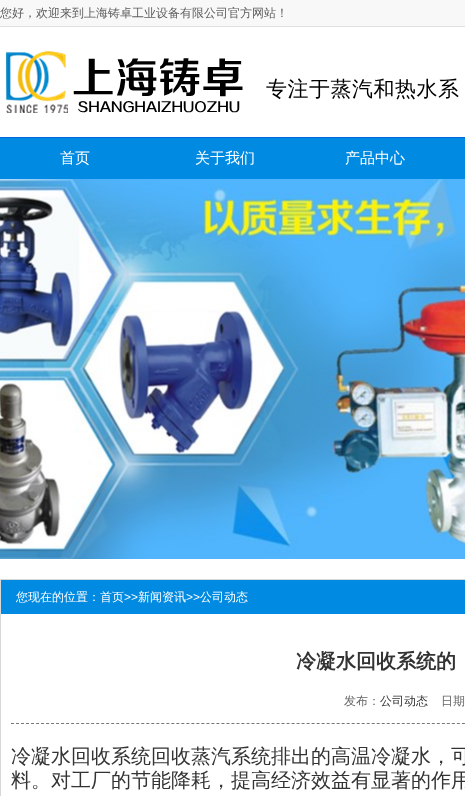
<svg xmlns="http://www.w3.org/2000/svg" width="465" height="796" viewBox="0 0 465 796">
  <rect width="100%" height="100%" fill="#fff"/>
  <path d="M0 0h465v26H0z" fill="#f8f8f8"/>
  <path d="M0 26h465v1H0z" fill="#e1e1e1"/>
  <image x="5" y="50" width="238" height="63" href="img/1.png"/>
  <image x="0" y="137" width="465" height="42" href="img/2.png"/>
  <image x="0" y="179" width="465" height="380" href="img/3.png"/>
  <path d="M0.5 579.5h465v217H0.5z" fill="none" stroke="#d8d8d8"/>
  <path d="M1 580h464v34H1z" fill="#008ae2"/>
  <path d="M11 723.5H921" fill="none" stroke="#777" stroke-dasharray="3 2.01"/>
  <text x="0" y="17" font-family="WenQuanYi Zen Hei" font-size="12" font-weight="500" fill="#5d5d5d">您好，欢迎来到上海铸卓工业设备有限公司官方网站！</text>
  <text x="266" y="96" font-family="WenQuanYi Zen Hei" font-size="21" font-weight="500" letter-spacing="0.5" fill="#000">专注于蒸汽和热水系</text>
  <g font-family="WenQuanYi Zen Hei" font-size="15" font-weight="500" fill="#fff">
    <text x="60" y="163">首页</text>
    <text x="195" y="163">关于我们</text>
    <text x="345" y="163">产品中心</text>
  </g>
  <text x="16" y="601" font-family="WenQuanYi Zen Hei" font-size="12" font-weight="500" fill="#fff">您现在的位置：首页</text>
  <text x="124" y="601" font-family="Liberation Sans" font-size="12" fill="#fff">&gt;&gt;</text>
  <text x="138" y="601" font-family="WenQuanYi Zen Hei" font-size="12" font-weight="500" fill="#fff">新闻资讯</text>
  <text x="186" y="601" font-family="Liberation Sans" font-size="12" fill="#fff">&gt;&gt;</text>
  <text x="200" y="601" font-family="WenQuanYi Zen Hei" font-size="12" font-weight="500" fill="#fff">公司动态</text>
  <text x="296" y="668" font-family="WenQuanYi Zen Hei" font-size="20" font-weight="bold" fill="#333">冷凝水回收系统的</text>
  <text x="344" y="705" font-family="WenQuanYi Zen Hei" font-size="12" font-weight="500" fill="#666">发布：</text>
  <text x="380" y="705" font-family="WenQuanYi Zen Hei" font-size="12" font-weight="500" fill="#333">公司动态</text>
  <text x="441" y="705" font-family="WenQuanYi Zen Hei" font-size="12" font-weight="500" fill="#666">日期</text>
  <g font-family="WenQuanYi Zen Hei" font-size="20" font-weight="500" fill="#333">
    <text x="11" y="763">冷凝水回收系统回收蒸汽系统排出的高温冷凝水，可</text>
    <text x="11" y="787">料。对工厂的节能降耗，提高经济效益有显著的作用</text>
  </g>
</svg>
